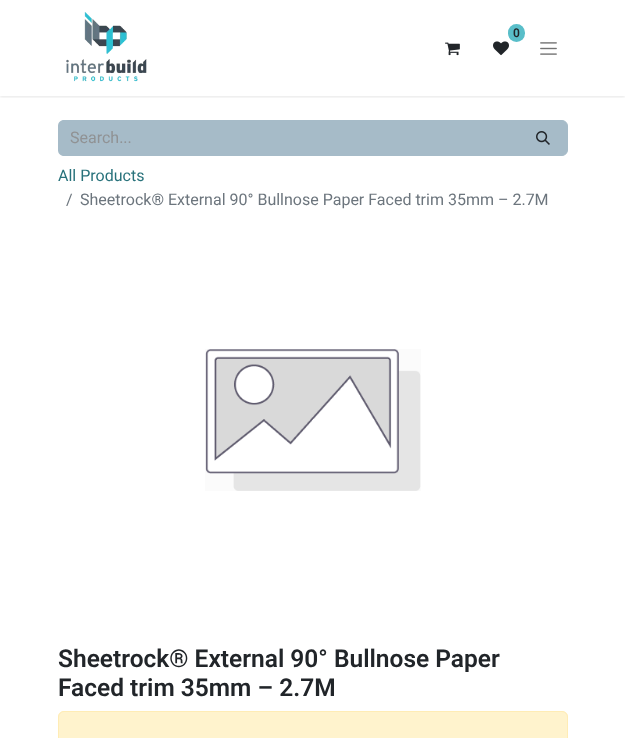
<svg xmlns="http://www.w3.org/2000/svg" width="625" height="738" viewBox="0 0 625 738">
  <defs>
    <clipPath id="clip1"><path d="M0 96h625v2H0z"/></clipPath>
  </defs>
  <rect width="100%" height="100%" fill="#fff"/>
  <g clip-path="url(#clip1)">
    <path d="M0 1h625v96H0z" fill="#0000001a" filter="blur(1.5px)"/>
  </g>
  <image x="66" y="12" width="81" height="70" href="img/1.png"/>
  <image x="493" y="41" width="16" height="15" href="img/2.png"/>
  <rect x="508" y="24" width="17" height="18" rx="8.5" fill="#59bec9"/>
  <image x="445" y="42" width="15" height="14" href="img/3.png"/>
  <image x="540" y="42" width="17" height="13" href="img/4.png"/>
  <path d="M64 120H520V156H64C60.5 156 58 153.5 58 150V126C58 122.5 60.5 120 64 120Z" fill="#a6bbc8"/>
  <path d="M519.5 120.5H562C565 120.5 567.5 123 567.5 126V150C567.5 153 565 155.5 562 155.5H519.5Z" fill="#a6bbc8" stroke="#a6bbc8"/>
  <image x="536" y="131" width="14" height="14" href="img/5.png"/>
  <image x="205" y="349" width="216" height="142" href="img/6.png"/>
  <path d="M64 711H562C565.5 711 568 713.5 568 717V738H58V717C58 713.5 60.5 711 64 711Z" fill="#fff3cd"/>
  <rect x="58.5" y="711.5" width="509" height="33" rx="5.5" fill="none" stroke="#ffecb5"/>
  <text x="513" y="37" font-family="Roboto" font-size="12" font-weight="600" fill="#212529">0</text>
  <text x="70" y="143" font-family="Roboto" font-size="16" fill="#909294">Search...</text>
  <text x="58" y="181" font-family="Roboto" font-size="16" fill="#28727b">All Products</text>
  <g font-family="Roboto" font-size="16" fill="#6c757d">
    <text x="66" y="205">/</text>
    <text x="80" y="205">Sheetrock® External 90° Bullnose Paper Faced trim 35mm – 2.7M</text>
  </g>
  <g font-family="Roboto" font-size="24.5" font-weight="600" fill="#212529">
    <text x="58" y="667">Sheetrock® External 90° Bullnose Paper</text>
    <text x="58" y="696">Faced trim 35mm – 2.7M</text>
  </g>
</svg>
